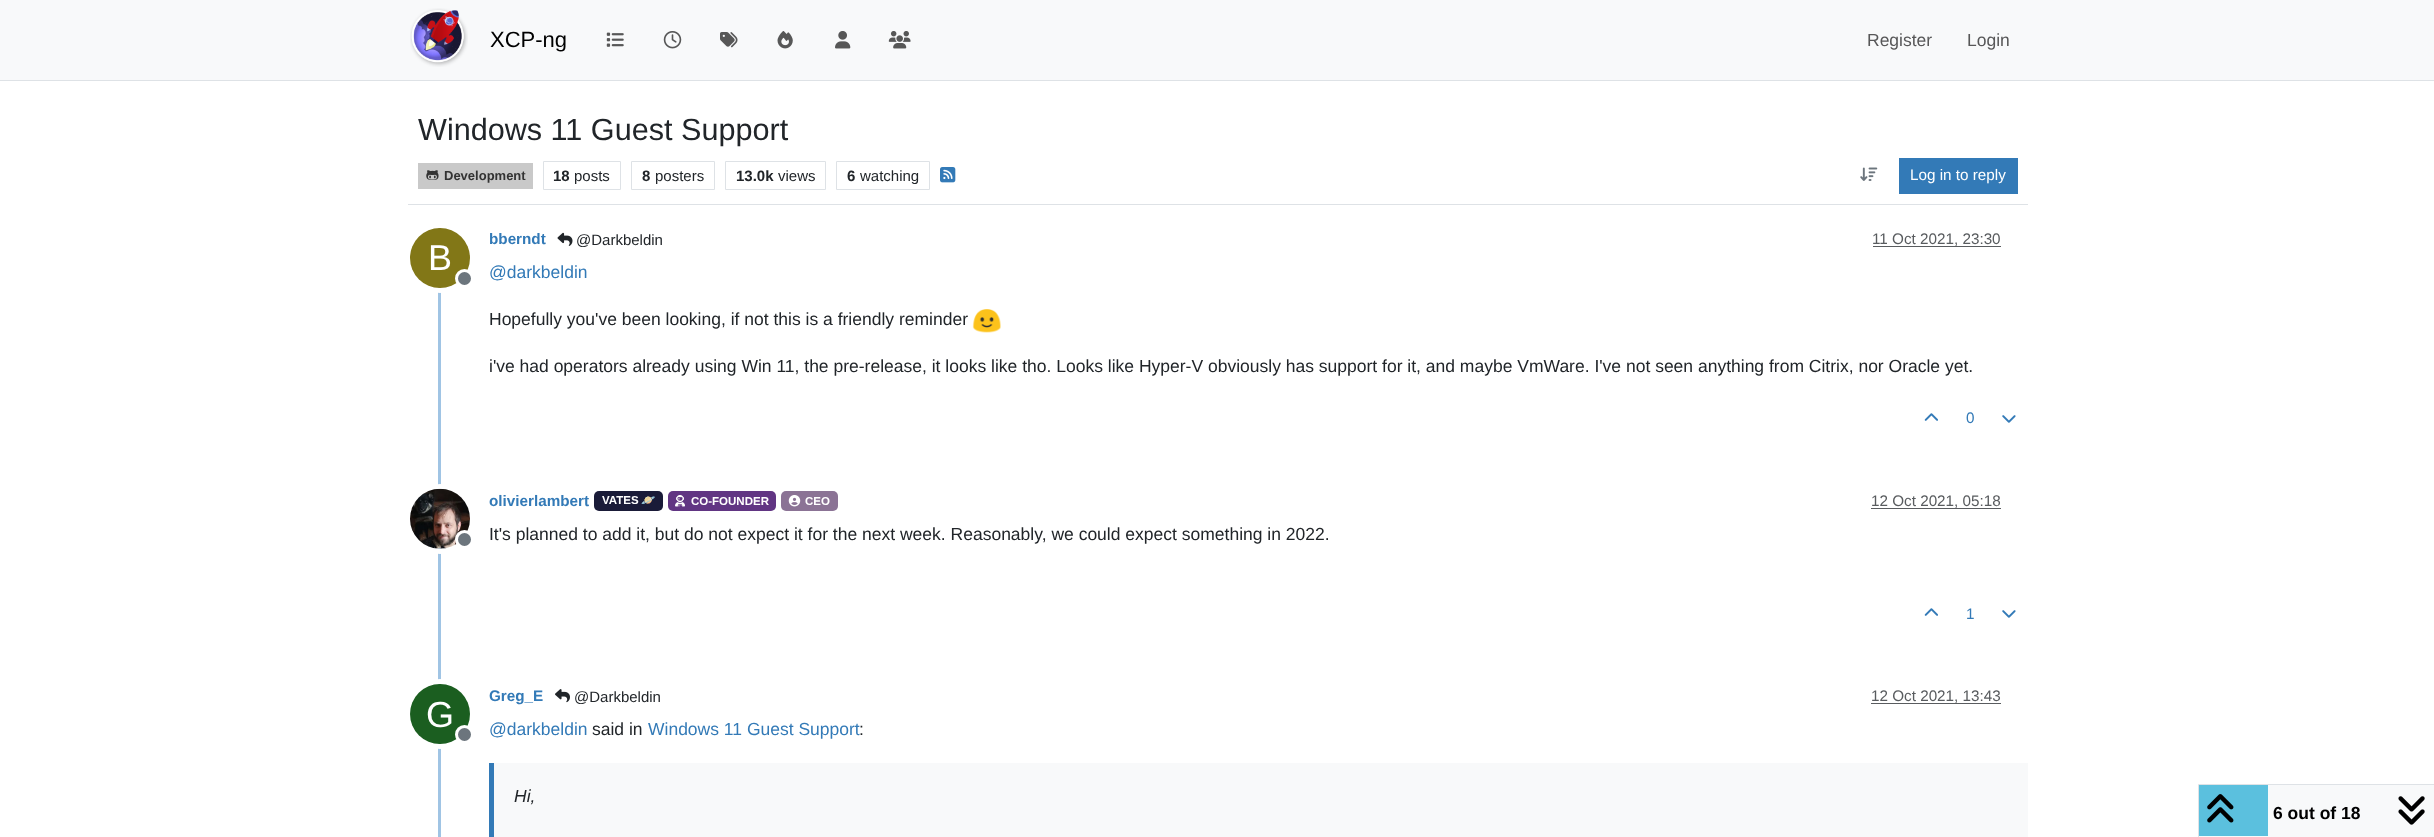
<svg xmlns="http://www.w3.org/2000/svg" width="2434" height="837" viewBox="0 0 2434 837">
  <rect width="100%" height="100%" fill="#fff"/>
  <path d="M0 0h2434v80H0z" fill="#f8f9fa"/>
  <path d="M0 80h2434v1H0z" fill="#dee2e6"/>
  <image x="410" y="8" width="58" height="59" href="img/1.png"/>
  <image x="606" y="32" width="18" height="15" href="img/2.png"/>
  <image x="663" y="31" width="19" height="18" href="img/3.png"/>
  <image x="720" y="32" width="18" height="16" href="img/4.png"/>
  <image x="777" y="31" width="16" height="18" href="img/5.png"/>
  <image x="835" y="31" width="16" height="18" href="img/6.png"/>
  <image x="888" y="31" width="23" height="18" href="img/7.png"/>
  <path d="M408 204h1620v1H408z" fill="#dee2e6"/>
  <path d="M418 163h115v26H418z" fill="#c9c9c9"/>
  <image x="426" y="170" width="13" height="10" href="img/8.png"/>
  <path d="M543.5 161.5h77v28H543.5z" fill="none" stroke="#dee2e6"/>
  <path d="M631.5 161.5h83v28H631.5z" fill="none" stroke="#dee2e6"/>
  <path d="M725.5 161.5h100v28H725.5z" fill="none" stroke="#dee2e6"/>
  <path d="M836.5 161.5h93v28H836.5z" fill="none" stroke="#dee2e6"/>
  <image x="940" y="167" width="16" height="16" href="img/9.png"/>
  <image x="1860" y="167" width="18" height="14" href="img/10.png"/>
  <path d="M1899 158h119v36H1899z" fill="#337ab7"/>
  <path d="M438 225h3v612H438z" fill="#a0c4e4"/>
  <image x="557" y="232" width="16" height="14" href="img/11.png"/>
  <path d="M1873 246h128v1H1873z" fill="#595c5f"/>
  <circle cx="440" cy="258" r="32.5" fill="none" stroke="#fff" stroke-width="5"/>
  <circle cx="440" cy="258" r="30" fill="#827717"/>
  <circle cx="464.5" cy="278.5" r="8" fill="#6c757d" stroke="#fff" stroke-width="3"/>
  <image x="972" y="309" width="29" height="24" href="img/12.png"/>
  <image x="1924" y="413" width="14" height="8" href="img/13.png"/>
  <image x="2002" y="415" width="14" height="8" href="img/14.png"/>
  <circle cx="440" cy="519" r="32.5" fill="none" stroke="#fff" stroke-width="5"/>
  <image x="410" y="488" width="60" height="61" href="img/15.png"/>
  <circle cx="464.5" cy="539.5" r="8" fill="#6c757d" stroke="#fff" stroke-width="3"/>
  <rect x="594" y="491" width="69" height="20" rx="5" fill="#1a1b38"/>
  <rect x="668" y="491" width="108" height="20" rx="5" fill="#613583"/>
  <image x="675" y="495" width="10" height="12" href="img/16.png"/>
  <rect x="781" y="491" width="57" height="20" rx="5" fill="#8b7395"/>
  <image x="788" y="495" width="13" height="12" href="img/17.png"/>
  <path d="M1871 508h130v1H1871z" fill="#595c5f"/>
  <image x="1924" y="608" width="14" height="8" href="img/13.png"/>
  <image x="2002" y="610" width="14" height="8" href="img/14.png"/>
  <image x="555" y="689" width="15" height="14" href="img/18.png"/>
  <path d="M1871 703h130v1H1871z" fill="#595c5f"/>
  <circle cx="440" cy="714" r="32.5" fill="none" stroke="#fff" stroke-width="5"/>
  <circle cx="440" cy="714" r="30" fill="#1b5e20"/>
  <circle cx="464.5" cy="734.5" r="8" fill="#6c757d" stroke="#fff" stroke-width="3"/>
  <path d="M494 763h1534v74H494z" fill="#f8f9fa"/>
  <path d="M489 763h5v74H489z" fill="#337ab7"/>
  <path d="M2198.5 784.5h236v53H2198.5z" fill="#f8f9fa" stroke="#dee2e6"/>
  <path d="M2199 785h69v51H2199z" fill="#5bc0de"/>
  <image x="2207" y="794" width="27" height="29" href="img/19.png"/>
  <image x="2398" y="796" width="27" height="29" href="img/20.png"/>
  <text x="490" y="47" font-family="Liberation Sans" font-size="22" fill="#000">XCP-ng</text>
  <g font-family="Liberation Sans" font-size="17.5" fill="#575758">
    <text x="1867" y="46">Register</text>
    <text x="1967" y="46">Login</text>
  </g>
  <text x="418" y="140" font-family="Liberation Sans" font-size="30.6" fill="#212529">Windows 11 Guest Support</text>
  <text x="444" y="180" font-family="Liberation Sans" font-size="13" font-weight="bold" fill="#333">Development</text>
  <text x="553" y="181" font-family="Liberation Sans" font-size="15" font-weight="bold" fill="#212529">18</text>
  <text x="574" y="181" font-family="Liberation Sans" font-size="15" fill="#212529">posts</text>
  <text x="642" y="181" font-family="Liberation Sans" font-size="15" font-weight="bold" fill="#212529">8</text>
  <text x="655" y="181" font-family="Liberation Sans" font-size="15" fill="#212529">posters</text>
  <text x="736" y="181" font-family="Liberation Sans" font-size="15" font-weight="bold" fill="#212529">13.0k</text>
  <text x="778" y="181" font-family="Liberation Sans" font-size="15" fill="#212529">views</text>
  <text x="847" y="181" font-family="Liberation Sans" font-size="15" font-weight="bold" fill="#212529">6</text>
  <text x="860" y="181" font-family="Liberation Sans" font-size="15" fill="#212529">watching</text>
  <text x="1910" y="180" font-family="Liberation Sans" font-size="15.25" fill="#fff">Log in to reply</text>
  <text x="489" y="244" font-family="Liberation Sans" font-size="15.25" font-weight="bold" fill="#337ab7">bberndt</text>
  <text x="576" y="245" font-family="Liberation Sans" font-size="15" fill="#212529">@Darkbeldin</text>
  <text x="1872" y="244" font-family="Liberation Sans" font-size="15.25" fill="#595c5f">11 Oct 2021, 23:30</text>
  <text x="428" y="270" font-family="Liberation Sans" font-size="36" fill="#fff">B</text>
  <text x="489" y="278" font-family="Liberation Sans" font-size="17.5" fill="#337ab7">@darkbeldin</text>
  <g font-family="Liberation Sans" font-size="17.5" fill="#212529">
    <text x="489" y="325">Hopefully you've been looking, if not this is a friendly reminder</text>
    <text x="489" y="372">i've had operators already using Win 11, the pre-release, it looks like tho. Looks like Hyper-V obviously has support for it, and maybe VmWare. I've not seen anything from Citrix, nor Oracle yet.</text>
  </g>
  <text x="1966" y="423" font-family="Liberation Sans" font-size="15.25" fill="#337ab7">0</text>
  <text x="489" y="506" font-family="Liberation Sans" font-size="15.25" font-weight="bold" fill="#337ab7">olivierlambert</text>
  <text x="602" y="504" font-family="Liberation Sans" font-size="11.5" font-weight="bold" fill="#fff">VATES</text>
  <text x="641" y="504" font-family="Noto Color Emoji" font-size="11.5" font-weight="bold" fill="#fff">🪐</text>
  <g font-family="Liberation Sans" font-size="11.5" font-weight="bold" fill="#fff">
    <text x="691" y="505">CO-FOUNDER</text>
    <text x="805" y="505">CEO</text>
  </g>
  <text x="1871" y="506" font-family="Liberation Sans" font-size="15.25" fill="#595c5f">12 Oct 2021, 05:18</text>
  <text x="489" y="540" font-family="Liberation Sans" font-size="17.5" fill="#212529">It's planned to add it, but do not expect it for the next week. Reasonably, we could expect something in 2022.</text>
  <text x="1966" y="619" font-family="Liberation Sans" font-size="15.25" fill="#337ab7">1</text>
  <text x="489" y="701" font-family="Liberation Sans" font-size="15.25" font-weight="bold" fill="#337ab7">Greg_E</text>
  <text x="574" y="702" font-family="Liberation Sans" font-size="15" fill="#212529">@Darkbeldin</text>
  <text x="1871" y="701" font-family="Liberation Sans" font-size="15.25" fill="#595c5f">12 Oct 2021, 13:43</text>
  <text x="426" y="727" font-family="Liberation Sans" font-size="36" fill="#fff">G</text>
  <text x="489" y="735" font-family="Liberation Sans" font-size="17.5" fill="#337ab7">@darkbeldin</text>
  <text x="592" y="735" font-family="Liberation Sans" font-size="17.5" fill="#212529">said in</text>
  <text x="648" y="735" font-family="Liberation Sans" font-size="17.5" fill="#337ab7">Windows 11 Guest Support</text>
  <text x="859" y="735" font-family="Liberation Sans" font-size="17.5" fill="#212529">:</text>
  <text x="514" y="802" font-family="Liberation Sans" font-size="17.5" font-style="italic" fill="#212529">Hi,</text>
  <text x="2273" y="819" font-family="Liberation Sans" font-size="17.5" font-weight="bold" fill="#000">6 out of 18</text>
</svg>
